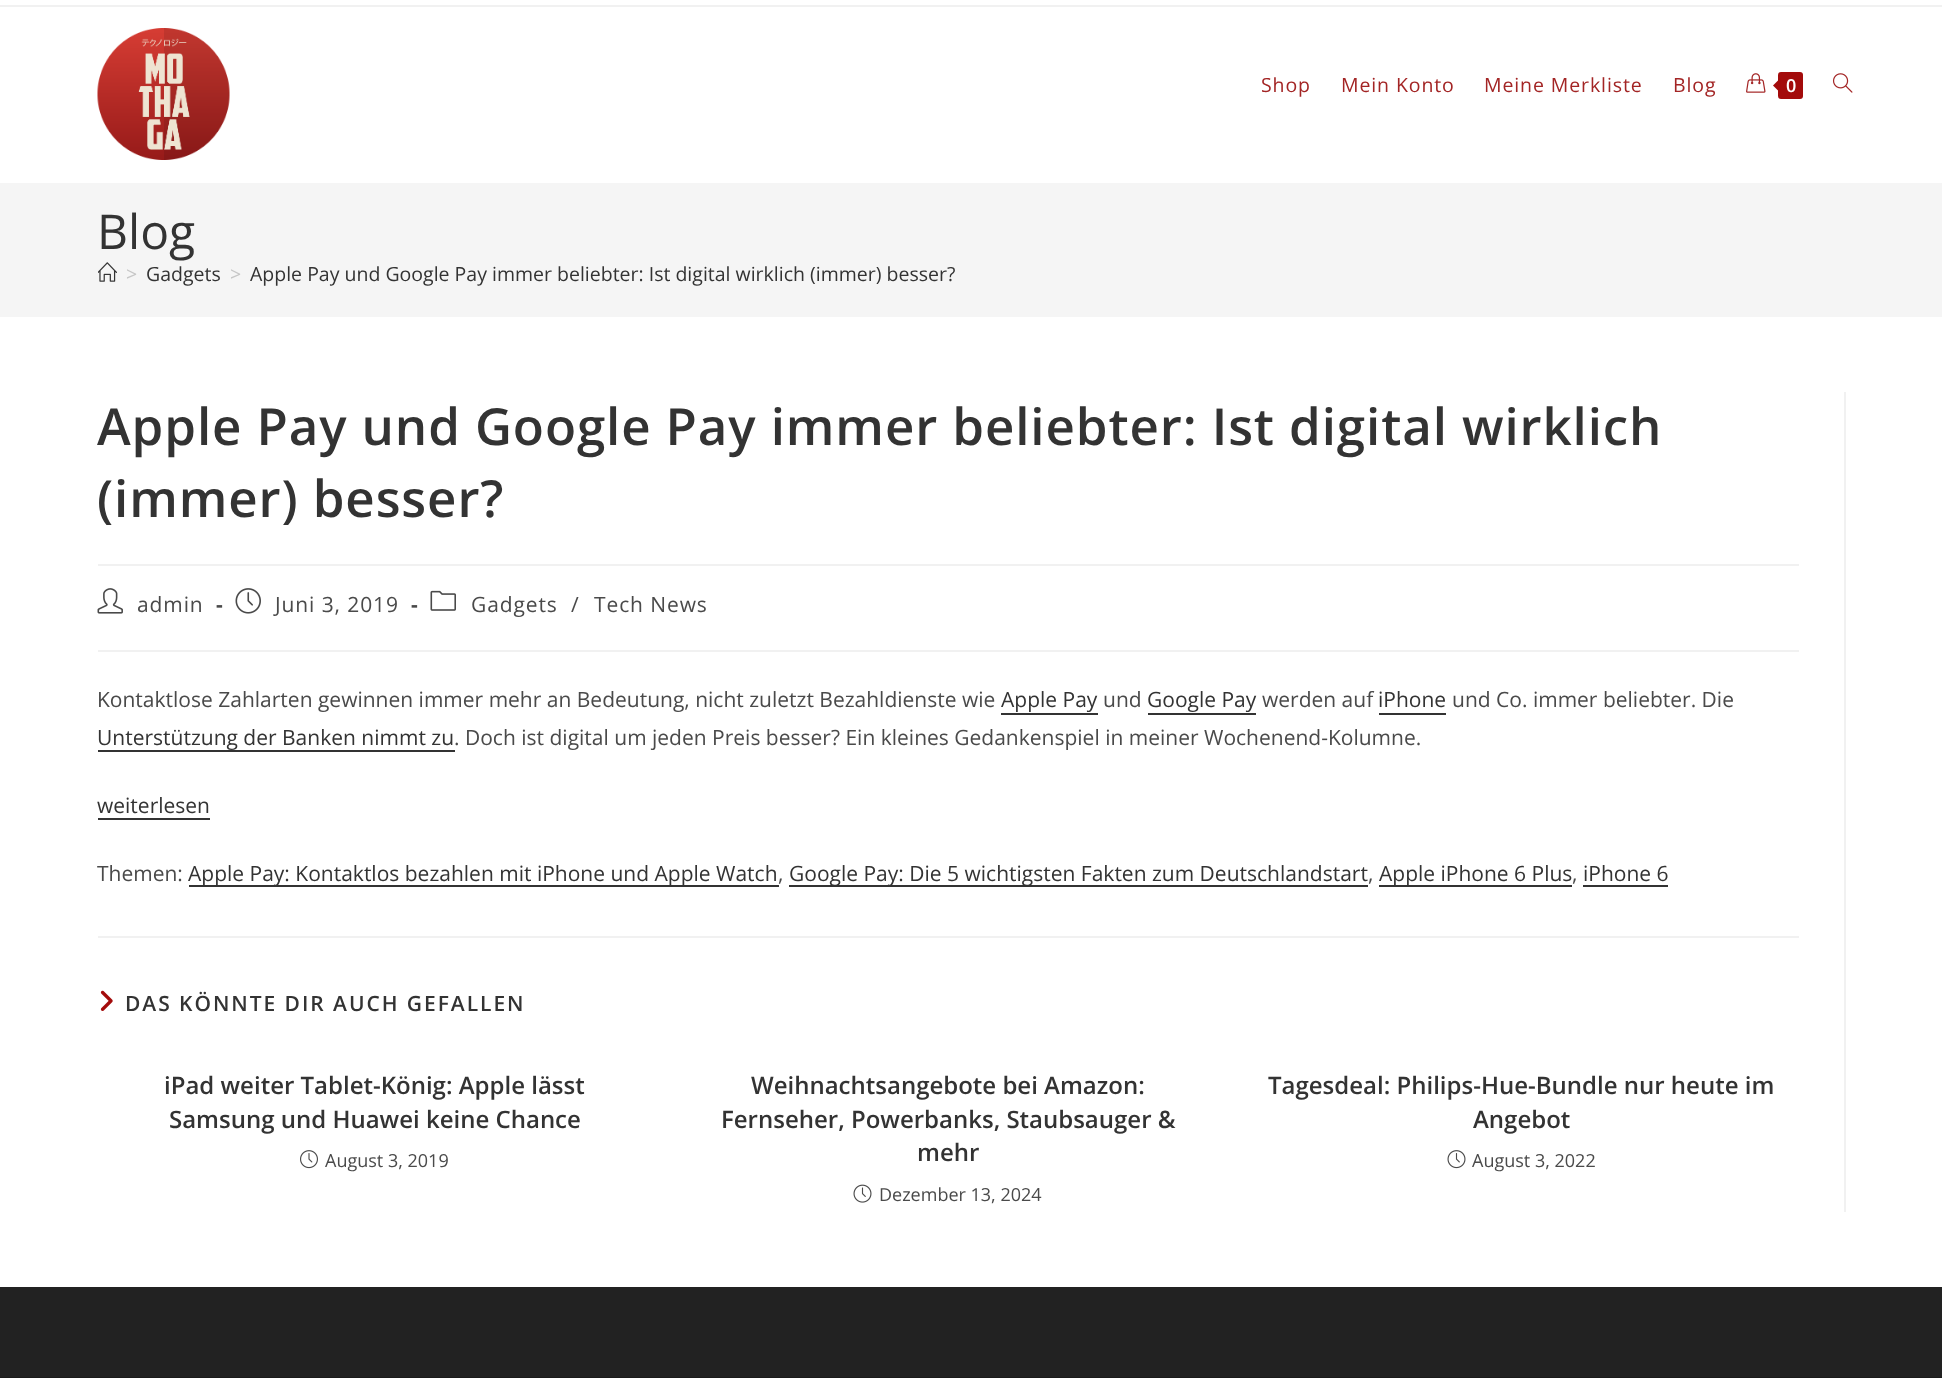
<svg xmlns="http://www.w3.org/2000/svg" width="1942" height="1378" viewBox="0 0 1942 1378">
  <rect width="100%" height="100%" fill="#fff"/>
  <path d="M0 5h1942v2H0z" fill="#f1f1f1"/>
  <image x="97" y="28" width="133" height="132" href="img/1.png"/>
  <image x="1746" y="73" width="20" height="20" href="img/2.png"/>
  <rect x="1778" y="72" width="25" height="27" rx="3" fill="#a30b0b"/>
  <path d="M1780.5 78V93L1773 85.5Z" fill="#a30b0b"/>
  <image x="1832" y="73" width="21" height="20" href="img/3.png"/>
  <path d="M0 183h1942v134H0z" fill="#f5f5f5"/>
  <image x="98" y="262" width="19" height="20" href="img/4.png"/>
  <path d="M1844 392h2v820H1844z" fill="#f1f1f1"/>
  <path d="M98 564h1701v2H98z" fill="#f1f1f1"/>
  <path d="M98 650h1701v2H98z" fill="#f1f1f1"/>
  <image x="97" y="588" width="26" height="26" href="img/5.png"/>
  <image x="235" y="588" width="26" height="26" href="img/6.png"/>
  <image x="430" y="590" width="26" height="21" href="img/7.png"/>
  <path d="M1001 713h97v2H1001z" fill="#333"/>
  <path d="M1148 713h108v2H1148z" fill="#333"/>
  <path d="M1379 713h67v2H1379z" fill="#333"/>
  <path d="M98 750h357v2H98z" fill="#333"/>
  <path d="M98 818h112v2H98z" fill="#333"/>
  <path d="M189 885h590v2H189z" fill="#333"/>
  <path d="M789 885h579v2H789z" fill="#333"/>
  <path d="M1379 885h193v2H1379z" fill="#333"/>
  <path d="M1583 885h85v2H1583z" fill="#333"/>
  <path d="M98 936h1701v2H98z" fill="#f1f1f1"/>
  <image x="100" y="990" width="13" height="21" href="img/8.png"/>
  <image x="300" y="1150" width="18" height="19" href="img/9.png"/>
  <image x="853" y="1184" width="19" height="19" href="img/10.png"/>
  <image x="1447" y="1150" width="19" height="19" href="img/11.png"/>
  <path d="M0 1287h1942v90H0z" fill="#222"/>
  <path d="M0 1377h1942v1H0z" fill="#1b1b1b"/>
  <g font-family="Open Sans" font-size="19.5" letter-spacing="0.9" fill="#a32525">
    <text x="1261" y="92">Shop</text>
    <text x="1341" y="92">Mein Konto</text>
    <text x="1484" y="92">Meine Merkliste</text>
    <text x="1673" y="92">Blog</text>
  </g>
  <text x="1786" y="92" font-family="Open Sans" font-size="18" font-weight="600" fill="#fff">0</text>
  <text x="97" y="249" font-family="Open Sans" font-size="48" fill="#333">Blog</text>
  <text x="126" y="281" font-family="Open Sans" font-size="19.5" fill="#c6c6c6">&gt;</text>
  <text x="146" y="281" font-family="Open Sans" font-size="19.5" fill="#333">Gadgets</text>
  <text x="230" y="281" font-family="Open Sans" font-size="19.5" fill="#c6c6c6">&gt;</text>
  <text x="250" y="281" font-family="Open Sans" font-size="19.5" fill="#333">Apple Pay und Google Pay immer beliebter: Ist digital wirklich (immer) besser?</text>
  <g font-family="Open Sans" font-size="51" font-weight="600" letter-spacing="0.9" fill="#333">
    <text x="97" y="445">Apple Pay und Google Pay immer beliebter: Ist digital wirklich</text>
    <text x="97" y="517">(immer) besser?</text>
  </g>
  <text x="137" y="612" font-family="Open Sans" font-size="21" letter-spacing="0.9" fill="#4a4a4a">admin</text>
  <text x="216" y="612" font-family="Open Sans" font-size="21" font-weight="bold" letter-spacing="0.9" fill="#4a4a4a">-</text>
  <text x="275" y="612" font-family="Open Sans" font-size="21" letter-spacing="0.9" fill="#4a4a4a">Juni 3, 2019</text>
  <text x="411" y="612" font-family="Open Sans" font-size="21" font-weight="bold" letter-spacing="0.9" fill="#4a4a4a">-</text>
  <g font-family="Open Sans" font-size="21" letter-spacing="0.9" fill="#4a4a4a">
    <text x="471" y="612">Gadgets</text>
    <text x="571" y="612">/</text>
    <text x="594" y="612">Tech News</text>
  </g>
  <text x="97" y="707" font-family="Open Sans" font-size="21" fill="#4a4a4a">Kontaktlose Zahlarten gewinnen immer mehr an Bedeutung, nicht zuletzt Bezahldienste wie</text>
  <text x="1001" y="707" font-family="Open Sans" font-size="21" fill="#333">Apple Pay</text>
  <text x="1103" y="707" font-family="Open Sans" font-size="21" fill="#4a4a4a">und</text>
  <text x="1147" y="707" font-family="Open Sans" font-size="21" fill="#333">Google Pay</text>
  <text x="1262" y="707" font-family="Open Sans" font-size="21" fill="#4a4a4a">werden auf</text>
  <text x="1378" y="707" font-family="Open Sans" font-size="21" fill="#333">iPhone</text>
  <text x="1452" y="707" font-family="Open Sans" font-size="21" fill="#4a4a4a">und Co. immer beliebter. Die</text>
  <text x="97" y="745" font-family="Open Sans" font-size="21" fill="#333">Unterstützung der Banken nimmt zu</text>
  <text x="454" y="745" font-family="Open Sans" font-size="21" fill="#4a4a4a">. Doch ist digital um jeden Preis besser? Ein kleines Gedankenspiel in meiner Wochenend-Kolumne.</text>
  <text x="97" y="813" font-family="Open Sans" font-size="21" fill="#333">weiterlesen</text>
  <text x="97" y="881" font-family="Open Sans" font-size="21" fill="#4a4a4a">Themen:</text>
  <text x="188" y="881" font-family="Open Sans" font-size="21" fill="#333">Apple Pay: Kontaktlos bezahlen mit iPhone und Apple Watch</text>
  <text x="778" y="881" font-family="Open Sans" font-size="21" fill="#4a4a4a">,</text>
  <text x="789" y="881" font-family="Open Sans" font-size="21" fill="#333">Google Pay: Die 5 wichtigsten Fakten zum Deutschlandstart</text>
  <text x="1368" y="881" font-family="Open Sans" font-size="21" fill="#4a4a4a">,</text>
  <text x="1379" y="881" font-family="Open Sans" font-size="21" fill="#333">Apple iPhone 6 Plus</text>
  <text x="1572" y="881" font-family="Open Sans" font-size="21" fill="#4a4a4a">,</text>
  <text x="1583" y="881" font-family="Open Sans" font-size="21" fill="#333">iPhone 6</text>
  <text x="125" y="1011" font-family="Open Sans" font-size="21" font-weight="600" letter-spacing="1.95" fill="#333">DAS KÖNNTE DIR AUCH GEFALLEN</text>
  <g font-family="Open Sans" font-size="24" font-weight="600" fill="#333">
    <text x="164" y="1094">iPad weiter Tablet-König: Apple lässt</text>
    <text x="169" y="1128">Samsung und Huawei keine Chance</text>
  </g>
  <text x="325" y="1167" font-family="Open Sans" font-size="18" fill="#4a4a4a">August 3, 2019</text>
  <g font-family="Open Sans" font-size="24" font-weight="600" fill="#333">
    <text x="751" y="1094">Weihnachtsangebote bei Amazon:</text>
    <text x="721" y="1128">Fernseher, Powerbanks, Staubsauger &amp;</text>
    <text x="917" y="1161">mehr</text>
  </g>
  <text x="879" y="1201" font-family="Open Sans" font-size="18" fill="#4a4a4a">Dezember 13, 2024</text>
  <g font-family="Open Sans" font-size="24" font-weight="600" fill="#333">
    <text x="1268" y="1094">Tagesdeal: Philips-Hue-Bundle nur heute im</text>
    <text x="1473" y="1128">Angebot</text>
  </g>
  <text x="1472" y="1167" font-family="Open Sans" font-size="18" fill="#4a4a4a">August 3, 2022</text>
</svg>
